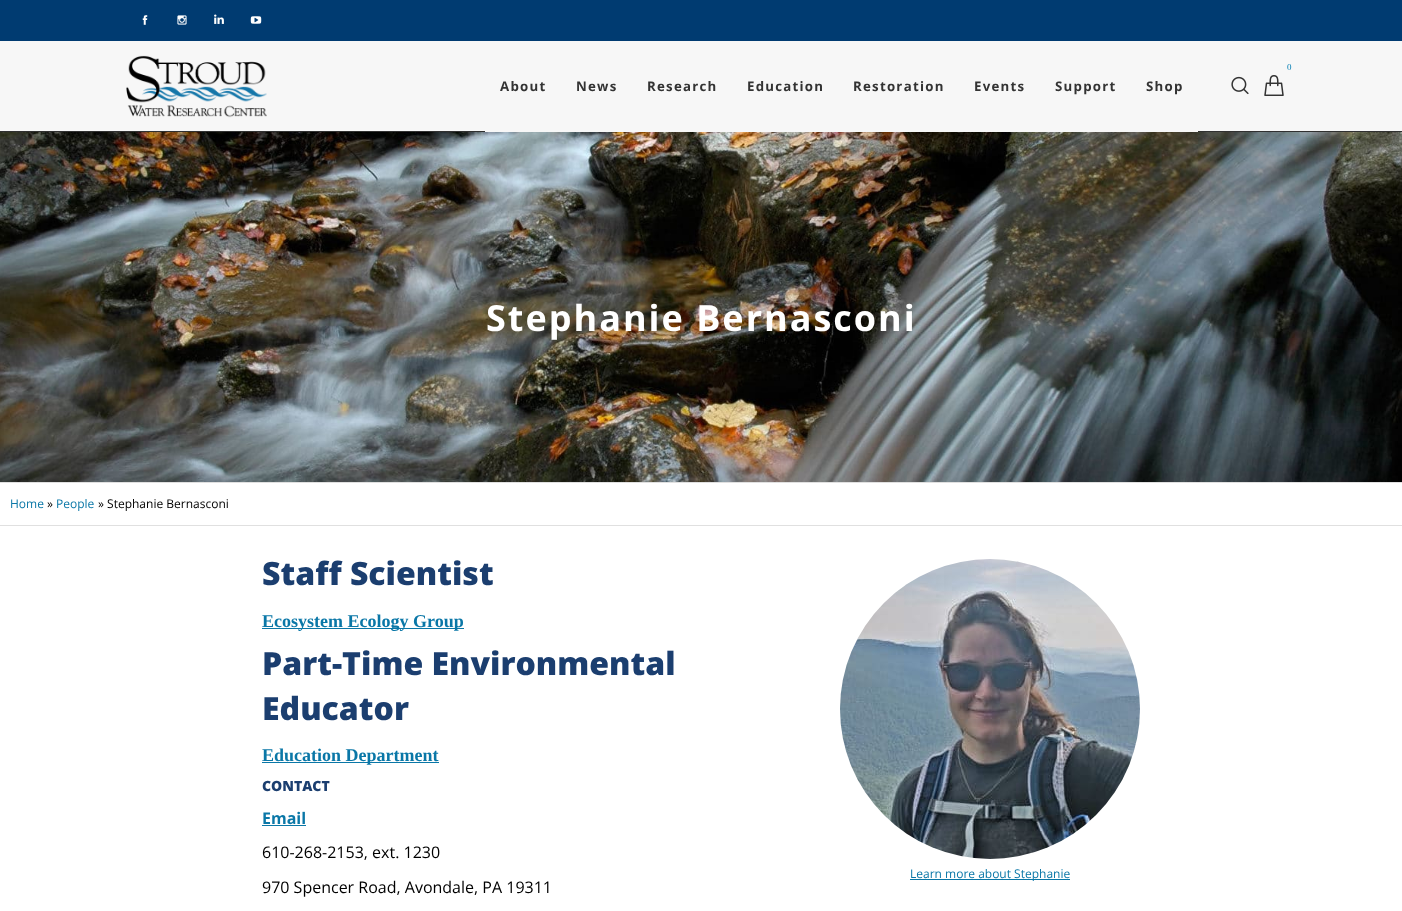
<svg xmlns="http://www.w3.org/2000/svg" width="1402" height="911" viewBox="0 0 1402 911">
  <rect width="100%" height="100%" fill="#fff"/>
  <path d="M0 131h1402v1H0z" fill="#303030"/>
  <path d="M0 0h1402v41H0z" fill="#003b71"/>
  <image x="142" y="15" width="6" height="10" href="img/1.png"/>
  <image x="177" y="15" width="10" height="10" href="img/2.png"/>
  <image x="214" y="14" width="10" height="10" href="img/3.png"/>
  <image x="250" y="16" width="12" height="8" href="img/4.png"/>
  <path d="M0 41h1402v90H0z" fill="#f7f7f7"/>
  <image x="126" y="55" width="141" height="63" href="img/5.png"/>
  <image x="1264" y="75" width="20" height="21" href="img/6.png"/>
  <image x="1231" y="76" width="18" height="19" href="img/7.png"/>
  <path d="M485 131h713v1H485z" fill="#f7f7f7"/>
  <image x="0" y="132" width="1402" height="350" href="img/8.png"/>
  <path d="M0 482h1402v1H0z" fill="#e0e0e0"/>
  <path d="M0 525h1402v1H0z" fill="#e0e0e0"/>
  <path d="M262 628h202v1H262z" fill="#0a77a7"/>
  <path d="M262 762h177v1H262z" fill="#0a77a7"/>
  <path d="M262 825h44v1H262z" fill="#0a77a7"/>
  <image x="840" y="559" width="300" height="300" href="img/9.png"/>
  <path d="M910 879h160v1H910z" fill="#0a77a7"/>
  <text x="1287" y="70" font-family="Liberation Serif" font-size="9" fill="#007db3">0</text>
  <g font-family="Open Sans" font-size="13.25" font-weight="bold" letter-spacing="1.25" fill="#333">
    <text x="500" y="91">About</text>
    <text x="576" y="91">News</text>
    <text x="647" y="91">Research</text>
    <text x="747" y="91">Education</text>
    <text x="853" y="91">Restoration</text>
    <text x="974" y="91">Events</text>
    <text x="1055" y="91">Support</text>
    <text x="1146" y="91">Shop</text>
  </g>
  <text x="486" y="331" font-family="Open Sans" font-size="36" font-weight="bold" letter-spacing="2" fill="#fff">Stephanie Bernasconi</text>
  <text x="10" y="508" font-family="Open Sans" font-size="12" fill="#0a77a7">Home</text>
  <text x="47" y="508" font-family="Open Sans" font-size="12" fill="#000">»</text>
  <text x="56" y="508" font-family="Open Sans" font-size="12" fill="#0a77a7">People</text>
  <text x="98" y="508" font-family="Open Sans" font-size="12" fill="#000">» Stephanie Bernasconi</text>
  <text x="262" y="585" font-family="Open Sans" font-size="32" font-weight="800" fill="#1b3e6f">Staff Scientist</text>
  <text x="262" y="627" font-family="Liberation Serif" font-size="18" font-weight="bold" fill="#0a77a7">Ecosystem Ecology Group</text>
  <g font-family="Open Sans" font-size="32" font-weight="800" fill="#1b3e6f">
    <text x="262" y="675">Part-Time Environmental</text>
    <text x="262" y="720">Educator</text>
  </g>
  <text x="262" y="761" font-family="Liberation Serif" font-size="18" font-weight="bold" fill="#0a77a7">Education Department</text>
  <text x="262" y="791" font-family="Open Sans" font-size="14" font-weight="800" fill="#1b3e6f">CONTACT</text>
  <text x="262" y="824" font-family="Open Sans" font-size="16" font-weight="bold" fill="#0a77a7">Email</text>
  <g font-family="Open Sans" font-size="16" fill="#000">
    <text x="262" y="858">610-268-2153, ext. 1230</text>
    <text x="262" y="893">970 Spencer Road, Avondale, PA 19311</text>
  </g>
  <text x="910" y="878" font-family="Open Sans" font-size="12" fill="#0a77a7">Learn more about Stephanie</text>
</svg>
